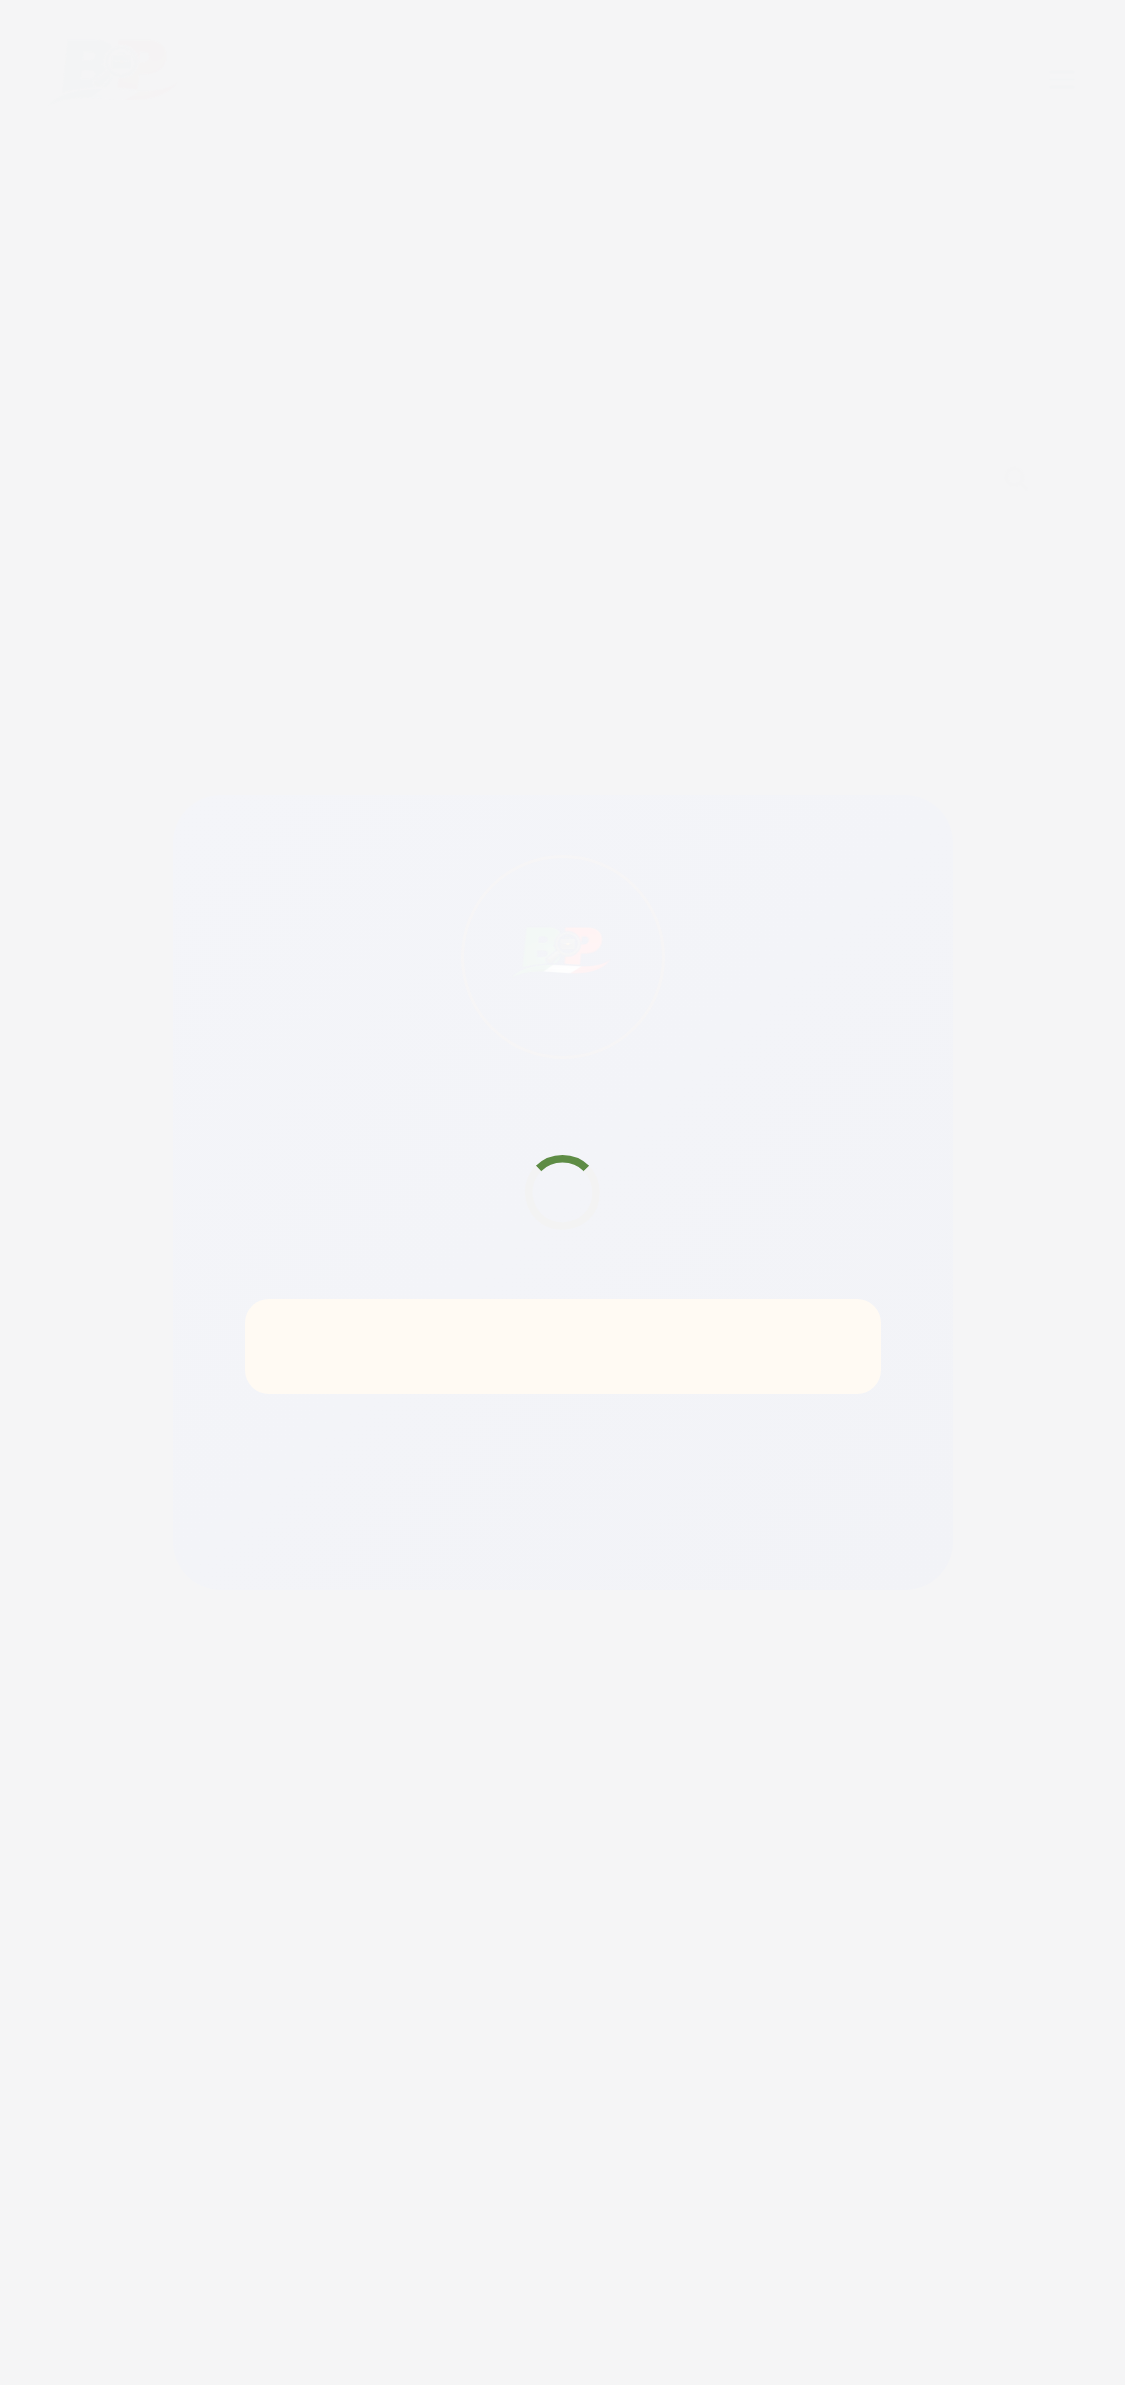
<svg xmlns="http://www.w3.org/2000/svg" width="1125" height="2385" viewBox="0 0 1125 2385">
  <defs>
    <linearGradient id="g1" gradientUnits="userSpaceOnUse" x1="169" y1="799" x2="956" y2="1586"><stop offset="0" stop-color="#f4f5f9"/><stop offset="1" stop-color="#f2f3f7"/></linearGradient>
  </defs>
  <rect width="100%" height="100%" fill="#f5f5f6"/>
  <image x="48" y="39" width="130" height="67" href="img/1.png"/>
  <image x="1049" y="70" width="26" height="19" href="img/2.png"/>
  <image x="1004" y="466" width="25" height="25" href="img/3.png"/>
  <rect x="173" y="795" width="780" height="795" rx="48" fill="url(#g1)"/>
  <circle cx="563" cy="957" r="100.5" fill="none" stroke="#fffaf34d" stroke-width="3"/>
  <image x="512" y="926" width="99" height="52" href="img/4.png"/>
  <rect x="245" y="1299" width="636" height="95" rx="24" fill="#fffaf3"/>
  <path d="M538.5 1168.5C551.5 1155.5 573.5 1155.5 586.5 1168.5" fill="none" stroke="#5e8c45" stroke-width="7.5"/>
  <path d="M586.5 1168.5C592.5 1175 596 1183.5 596 1192.5C596.5 1233 537.5 1238.5 529.5 1199C527 1188 530.5 1176.5 538.5 1168.5" fill="none" stroke="#f3f3f3" stroke-width="7.5"/>
</svg>
